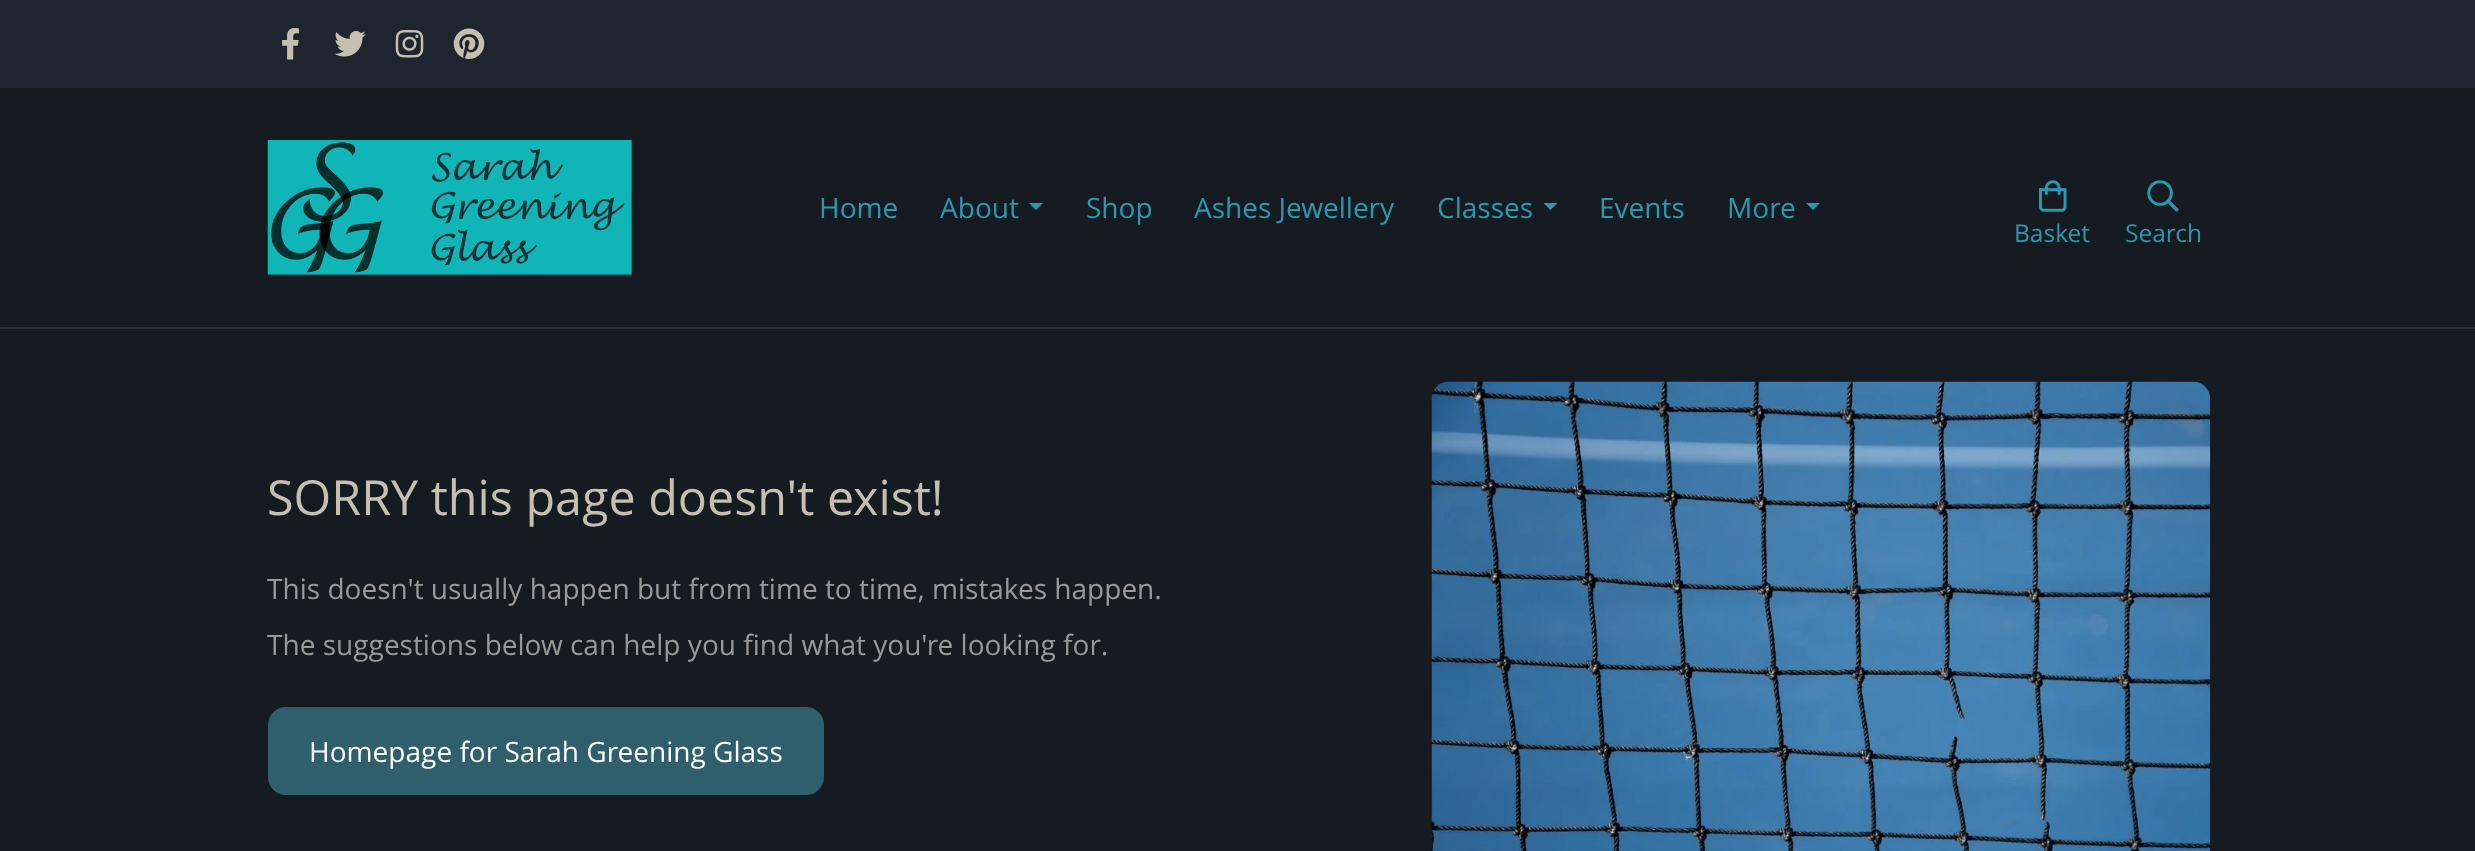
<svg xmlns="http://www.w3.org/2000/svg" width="2475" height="851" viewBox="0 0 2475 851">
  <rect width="100%" height="100%" fill="#161b22"/>
  <path d="M0 327h2475v2H0z" fill="#2d3138"/>
  <path d="M0 0h2475v88H0z" fill="#1e252e"/>
  <image x="282" y="28" width="17" height="32" href="img/1.png"/>
  <image x="334" y="31" width="32" height="26" href="img/2.png"/>
  <image x="395" y="29" width="29" height="29" href="img/3.png"/>
  <image x="453" y="28" width="32" height="31" href="img/4.png"/>
  <image x="267" y="140" width="365" height="135" href="img/5.png"/>
  <path d="M1029 203H1043L1036 210Z" fill="#2999b0"/>
  <path d="M1543.5 203H1557.5L1550.5 210Z" fill="#2999b0"/>
  <path d="M1806 203H1820L1813 210Z" fill="#2999b0"/>
  <image x="2038" y="180" width="29" height="32" href="img/6.png"/>
  <image x="2147" y="180" width="32" height="32" href="img/7.png"/>
  <rect x="270" y="709" width="552" height="84" rx="16" fill="#2f5f6c" stroke="#2f5f6c" stroke-width="4"/>
  <image x="1431" y="381" width="780" height="470" href="img/8.png"/>
  <g font-family="Open Sans" font-size="28" fill="#2999b0">
    <text x="819" y="218">Home</text>
    <text x="940" y="218">About</text>
    <text x="1086" y="218">Shop</text>
    <text x="1194" y="218">Ashes Jewellery</text>
    <text x="1437" y="218">Classes</text>
    <text x="1599" y="218">Events</text>
    <text x="1727" y="218">More</text>
  </g>
  <g font-family="Open Sans" font-size="24.5" fill="#2999b0">
    <text x="2014" y="242">Basket</text>
    <text x="2125" y="242">Search</text>
  </g>
  <text x="267" y="515" font-family="Open Sans" font-size="48.4" fill="#c4bfae">SORRY this page doesn't exist!</text>
  <g font-family="Open Sans" font-size="28" fill="#999">
    <text x="267" y="599">This doesn't usually happen but from time to time, mistakes happen.</text>
    <text x="267" y="655">The suggestions below can help you find what you're looking for.</text>
  </g>
  <text x="309" y="762" font-family="Open Sans" font-size="28" fill="#fff">Homepage for Sarah Greening Glass</text>
</svg>
